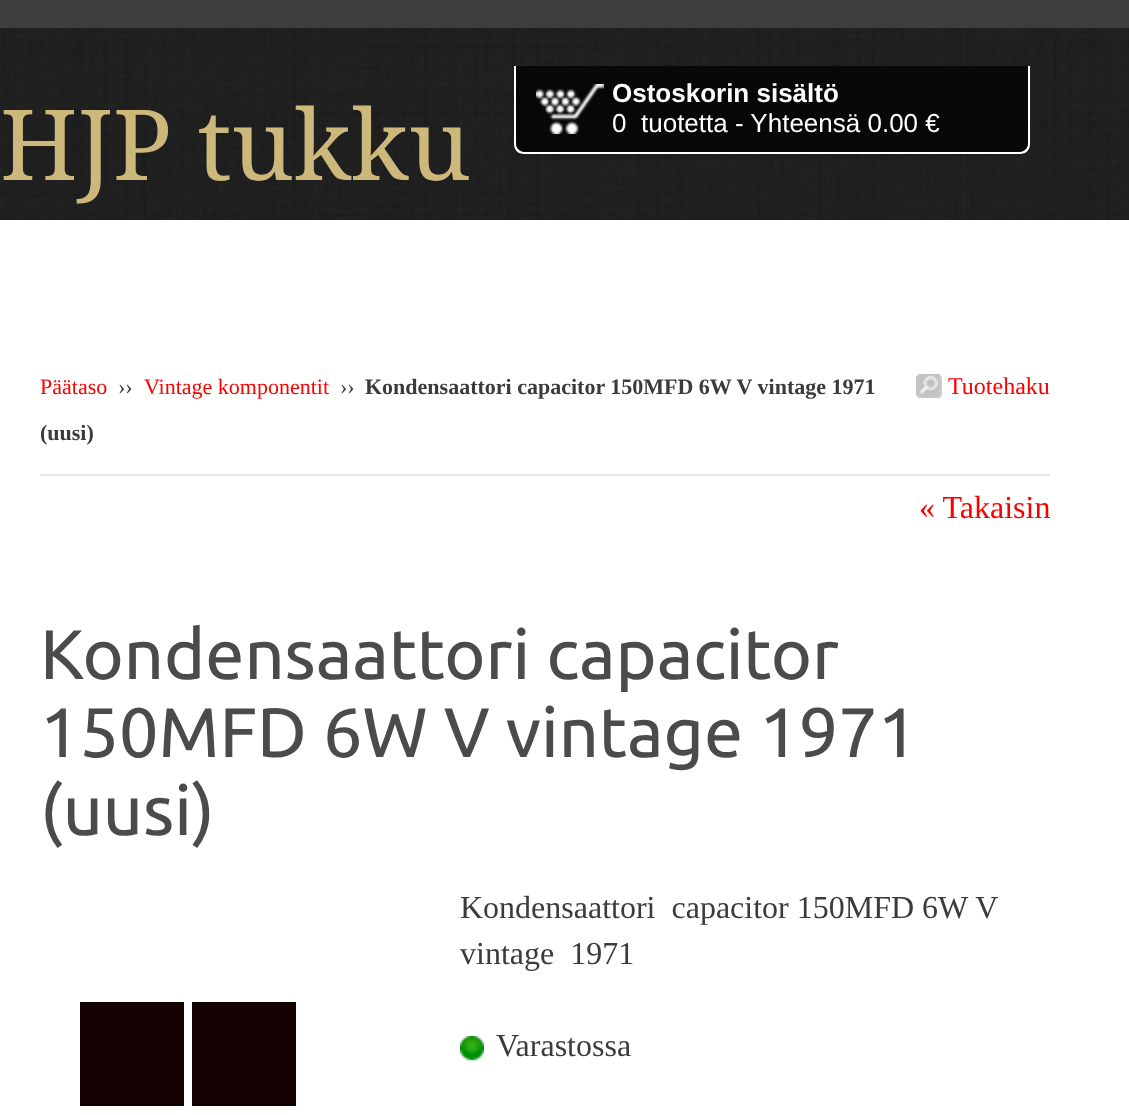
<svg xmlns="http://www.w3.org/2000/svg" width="1129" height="1115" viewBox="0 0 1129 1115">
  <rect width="100%" height="100%" fill="#fff"/>
  <image x="0" y="28" width="1129" height="192" href="img/1.png"/>
  <path d="M0 0h1129v28H0z" fill="#3d3d3d"/>
  <path d="M514 66H1030V144C1030 149.5 1025.5 154 1020 154H524C518.5 154 514 149.5 514 144Z" fill="#000000bf"/>
  <path d="M514 66H1030V144C1030 150 1026 154 1020 154H524C518 154 514 150 514 144ZM516 66H1028V144C1028 148 1024 152 1020 152H524C520 152 516 148 516 144Z" fill="#fff" fill-rule="evenodd"/>
  <image x="536" y="84" width="68" height="50" href="img/2.png"/>
  <image x="916" y="374" width="26" height="24" href="img/3.png"/>
  <path d="M40 474h1010v2H40z" fill="#e6e6e6"/>
  <path d="M80 1002h104v104H80z" fill="#130000"/>
  <path d="M192 1002h104v104H192z" fill="#130000"/>
  <image x="460" y="1036" width="24" height="25" href="img/4.png"/>
  <text x="0" y="180" font-family="Droid Serif" font-size="98" fill="#cdb87c">HJP tukku</text>
  <text x="612" y="102" font-family="Liberation Sans" font-size="26" font-weight="bold" fill="#fff">Ostoskorin sisältö</text>
  <g font-family="Liberation Sans" font-size="26" fill="#fff">
    <text x="612" y="132">0</text>
    <text x="641" y="132">tuotetta - Yhteensä 0.00 €</text>
  </g>
  <text x="40" y="394" font-family="Liberation Serif" font-size="22" fill="#fc0000">Päätaso</text>
  <text x="118" y="394" font-family="Liberation Serif" font-size="22" fill="#3b3b3b">››</text>
  <text x="144" y="394" font-family="Liberation Serif" font-size="22" fill="#fc0000">Vintage komponentit</text>
  <text x="340" y="394" font-family="Liberation Serif" font-size="22" fill="#3b3b3b">››</text>
  <text x="365" y="394" font-family="Liberation Serif" font-size="22" font-weight="bold" fill="#3b3b3b">Kondensaattori capacitor 150MFD 6W V vintage 1971</text>
  <text x="948" y="394" font-family="Liberation Serif" font-size="24" fill="#fc0000">Tuotehaku</text>
  <text x="40" y="440" font-family="Liberation Serif" font-size="22" font-weight="bold" fill="#3b3b3b">(uusi)</text>
  <text x="919" y="518" font-family="Liberation Serif" font-size="32" fill="#fc0000">« Takaisin</text>
  <g font-family="Ubuntu" font-size="70" fill="#4b4b4b">
    <text x="40" y="679">Kondensaattori capacitor</text>
    <text x="40" y="757">150MFD 6W V vintage 1971</text>
    <text x="40" y="835">(uusi)</text>
  </g>
  <g font-family="Liberation Serif" font-size="32" fill="#3b3b3b">
    <text x="460" y="918" xml:space="preserve">Kondensaattori  capacitor 150MFD 6W V</text>
    <text x="460" y="964" xml:space="preserve">vintage  1971</text>
    <text x="496" y="1056">Varastossa</text>
  </g>
</svg>
